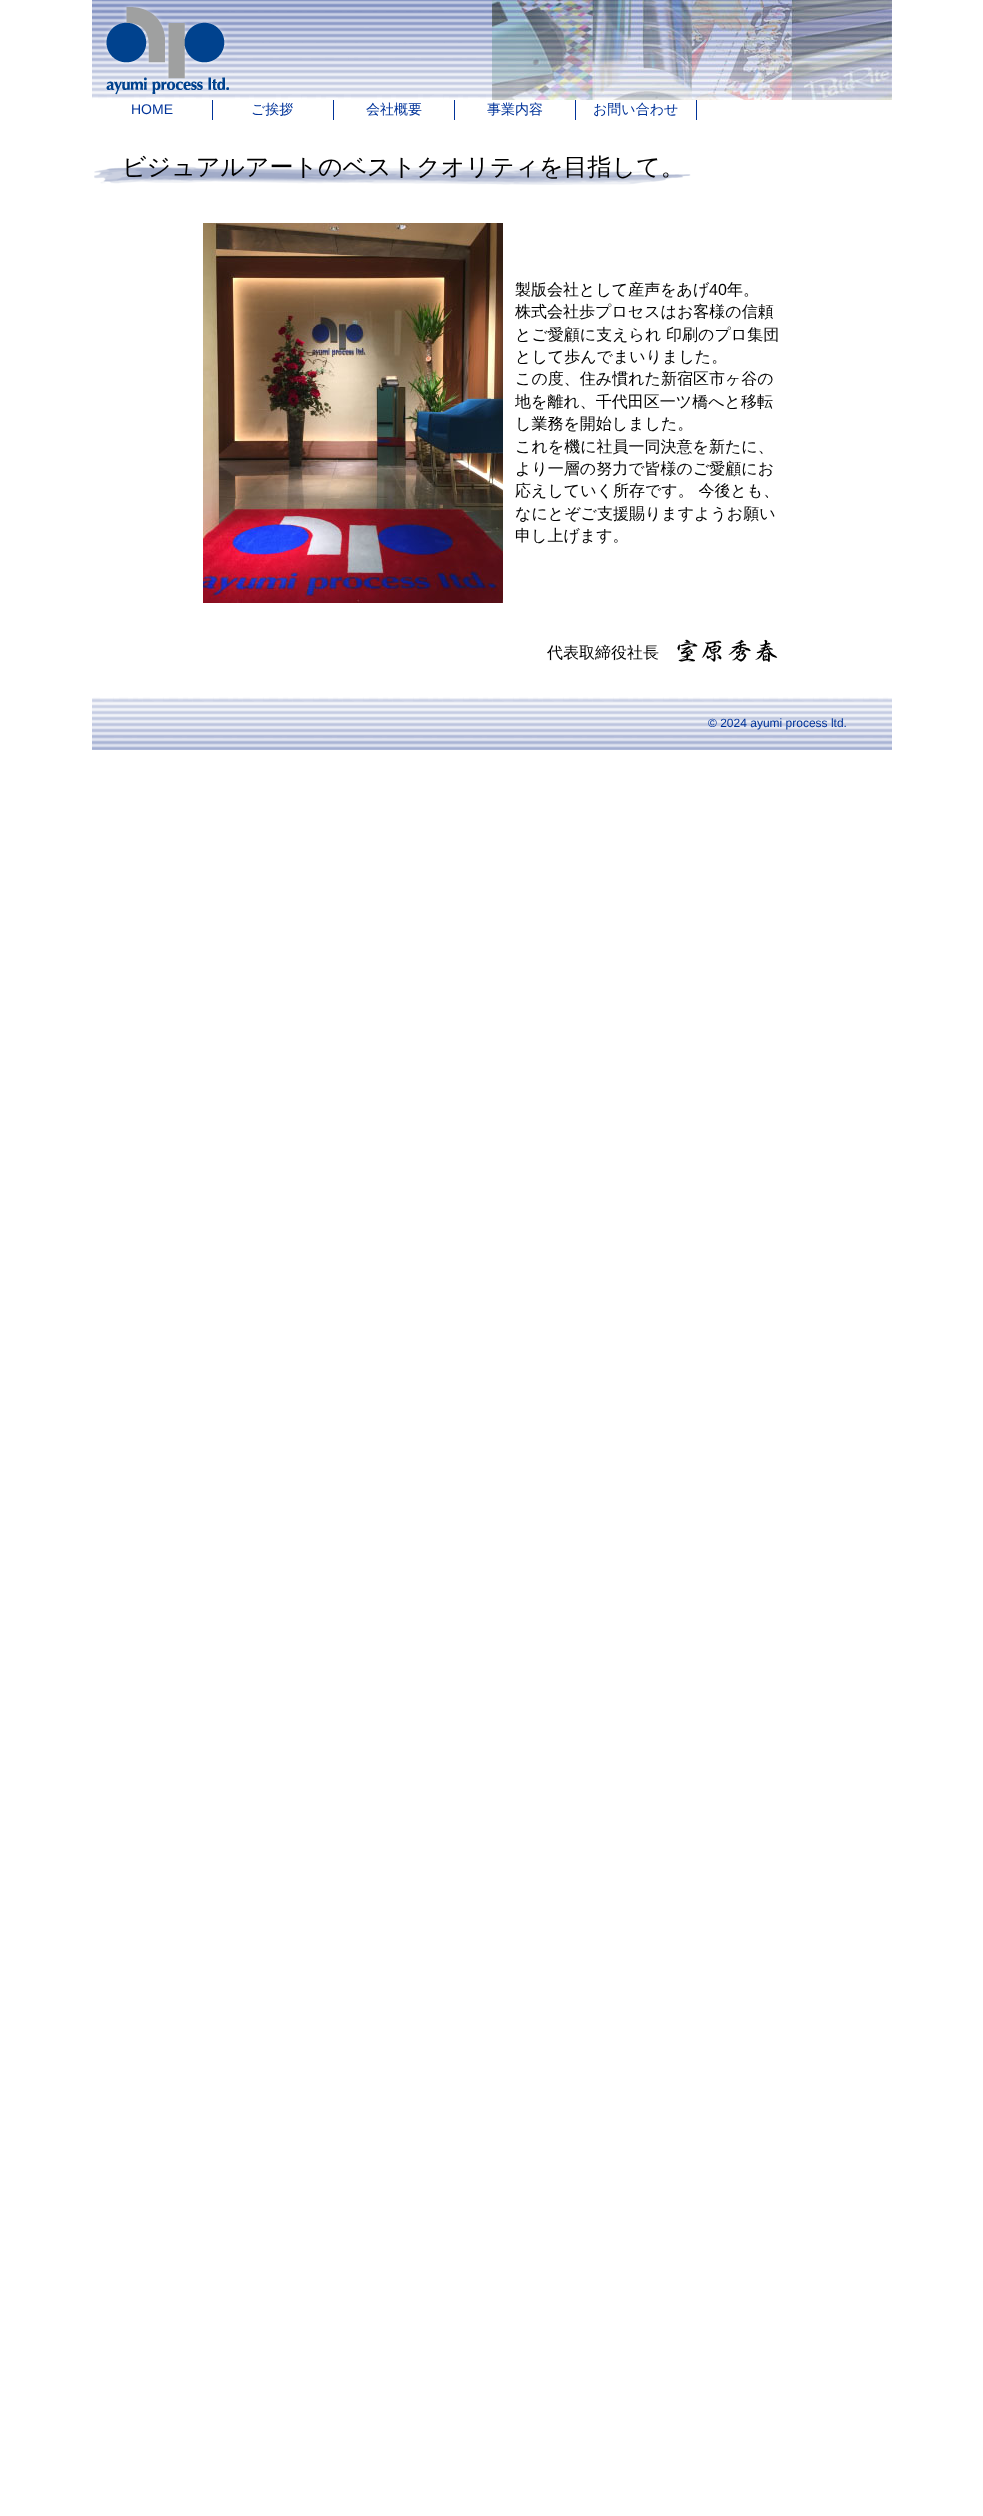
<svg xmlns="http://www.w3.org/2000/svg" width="983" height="2516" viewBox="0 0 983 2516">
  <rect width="100%" height="100%" fill="#fff"/>
  <image x="92" y="0" width="400" height="100" href="img/1.png"/>
  <image x="104" y="4" width="125" height="91" href="img/2.png"/>
  <image x="492" y="0" width="400" height="100" href="img/3.png"/>
  <path d="M212 100h1v20H212z" fill="#039"/>
  <path d="M333 100h1v20H333z" fill="#039"/>
  <path d="M454 100h1v20H454z" fill="#039"/>
  <path d="M575 100h1v20H575z" fill="#039"/>
  <path d="M696 100h1v20H696z" fill="#039"/>
  <image x="94" y="166" width="597" height="19" href="img/4.png"/>
  <image x="203" y="223" width="300" height="380" href="img/5.png"/>
  <image x="677" y="639" width="101" height="23" href="img/6.png"/>
  <image x="92" y="696" width="800" height="54" href="img/7.png"/>
  <text x="131" y="114" font-family="Liberation Sans" font-size="14" fill="#039">HOME</text>
  <g font-family="WenQuanYi Zen Hei" font-size="14" font-weight="500" fill="#039">
    <text x="251" y="114">ご挨拶</text>
    <text x="366" y="114">会社概要</text>
    <text x="487" y="114">事業内容</text>
    <text x="593" y="114">お問い合わせ</text>
  </g>
  <text x="122" y="175" font-family="WenQuanYi Zen Hei" font-size="24" font-weight="500" fill="#000">ビジュアルアートのベストクオリティを目指して。</text>
  <text x="515" y="295" font-family="WenQuanYi Zen Hei" font-size="16" font-weight="500" fill="#000">製版会社として産声をあげ</text>
  <text x="709" y="295" font-family="Liberation Sans" font-size="16" fill="#000">40</text>
  <g font-family="WenQuanYi Zen Hei" font-size="16" font-weight="500" fill="#000">
    <text x="727" y="295">年。</text>
    <text x="515" y="317">株式会社歩プロセスはお客様の信頼</text>
    <text x="515" y="340">とご愛顧に支えられ 印刷のプロ集団</text>
    <text x="515" y="362">として歩んでまいりました。</text>
    <text x="515" y="384">この度、住み慣れた新宿区市ヶ谷の</text>
    <text x="515" y="407">地を離れ、千代田区一ツ橋へと移転</text>
    <text x="515" y="429">し業務を開始しました。</text>
    <text x="515" y="452">これを機に社員一同決意を新たに、</text>
    <text x="515" y="474">より一層の努力で皆様のご愛顧にお</text>
    <text x="515" y="496">応えしていく所存です。 今後とも、</text>
    <text x="515" y="519">なにとぞご支援賜りますようお願い</text>
    <text x="515" y="541">申し上げます。</text>
    <text x="547" y="658">代表取締役社長</text>
  </g>
  <text x="708" y="727" font-family="Liberation Sans" font-size="12" fill="#039">© 2024 ayumi process ltd.</text>
</svg>
